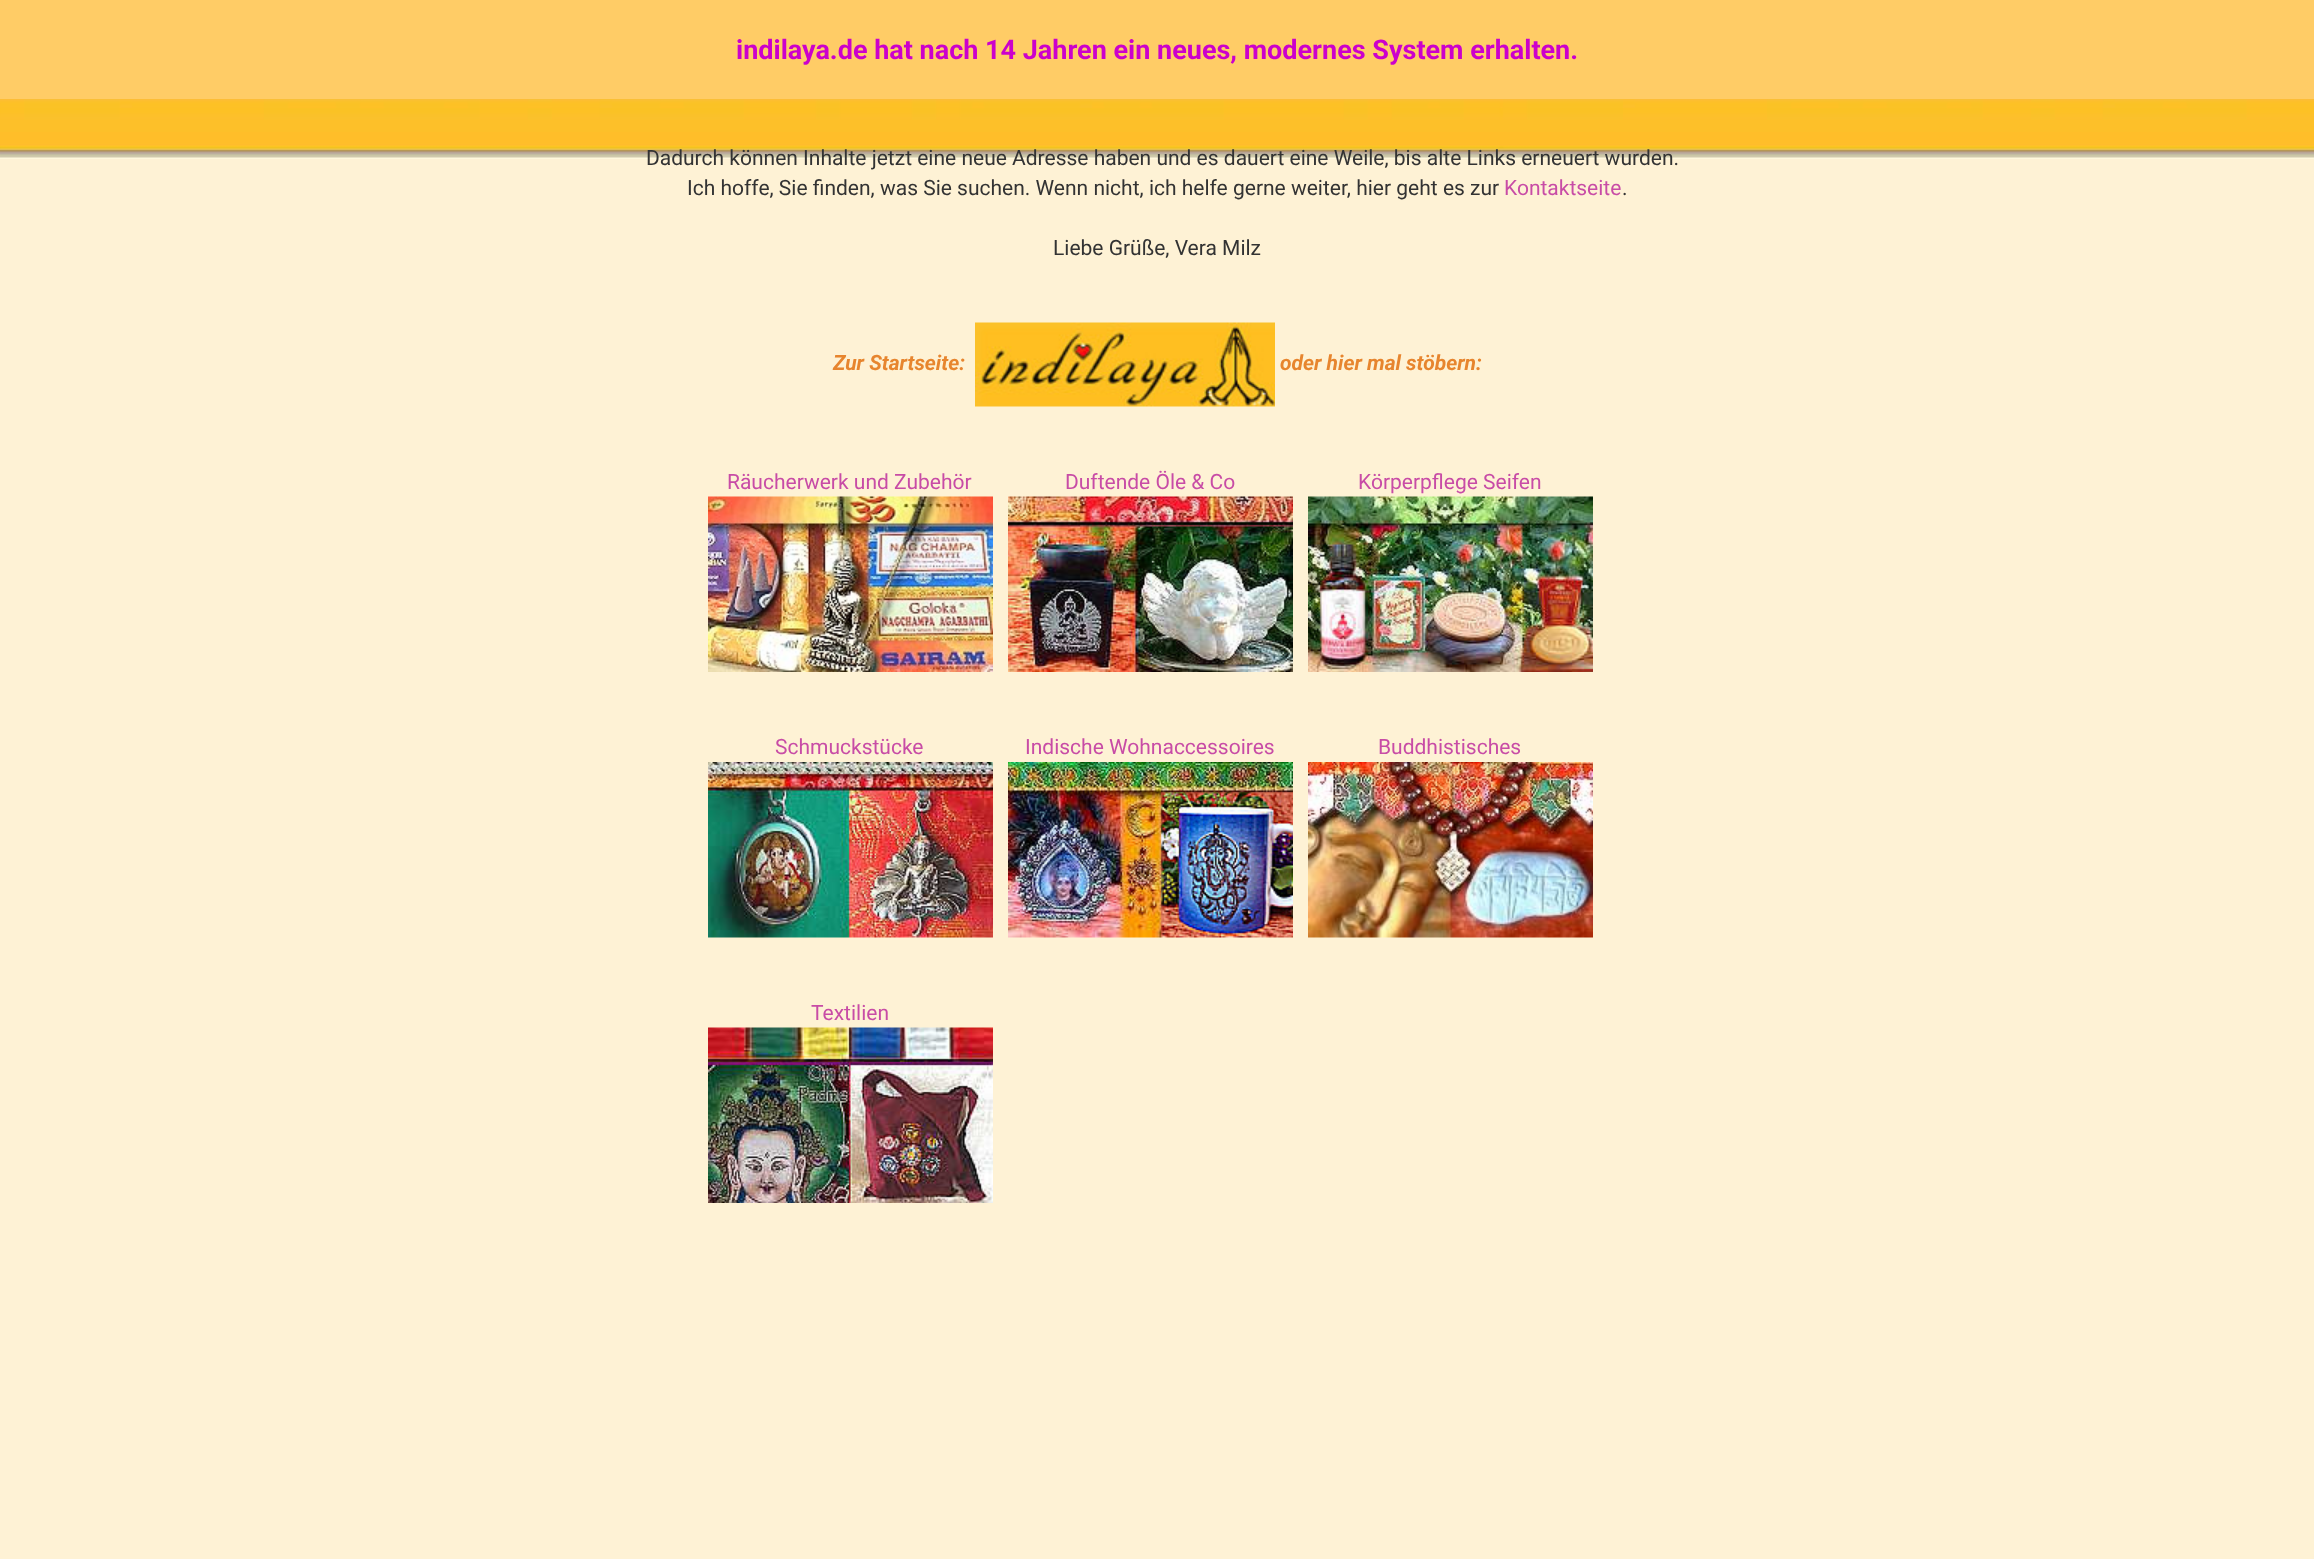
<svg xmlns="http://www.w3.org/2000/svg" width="2314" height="1559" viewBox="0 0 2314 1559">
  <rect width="100%" height="100%" fill="#fef2d5"/>
  <image x="0" y="99" width="2314" height="60" href="img/1.png"/>
  <path d="M0 0h2314v99H0z" fill="#fc6"/>
  <image x="975" y="322" width="300" height="85" href="img/2.png"/>
  <image x="708" y="496" width="285" height="176" href="img/3.png"/>
  <image x="1008" y="496" width="285" height="176" href="img/4.png"/>
  <image x="1308" y="496" width="285" height="176" href="img/5.png"/>
  <image x="708" y="762" width="285" height="176" href="img/6.png"/>
  <image x="1008" y="762" width="285" height="176" href="img/7.png"/>
  <image x="1308" y="762" width="285" height="176" href="img/8.png"/>
  <image x="708" y="1027" width="285" height="176" href="img/9.png"/>
  <text x="736" y="59" font-family="Roboto" font-size="27" font-weight="bold" fill="#c0c">indilaya.de hat nach 14 Jahren ein neues, modernes System erhalten.</text>
  <g font-family="Roboto" font-size="21" fill="#333">
    <text x="646" y="165">Dadurch können Inhalte jetzt eine neue Adresse haben und es dauert eine Weile, bis alte Links erneuert wurden.</text>
    <text x="687" y="195">Ich hoffe, Sie finden, was Sie suchen. Wenn nicht, ich helfe gerne weiter, hier geht es zur</text>
  </g>
  <text x="1504" y="195" font-family="Roboto" font-size="21" fill="#c84ca6">Kontaktseite</text>
  <g font-family="Roboto" font-size="21" fill="#333">
    <text x="1622" y="195">.</text>
    <text x="1053" y="255">Liebe Grüße, Vera Milz</text>
  </g>
  <g font-family="Roboto" font-size="21" font-weight="bold" font-style="italic" fill="#e7852e">
    <text x="833" y="370">Zur Startseite:</text>
    <text x="1280" y="370">oder hier mal stöbern:</text>
  </g>
  <g font-family="Roboto" font-size="21" fill="#c84ca6">
    <text x="727" y="489">Räucherwerk und Zubehör</text>
    <text x="1065" y="489">Duftende Öle &amp; Co</text>
    <text x="1358" y="489">Körperpflege Seifen</text>
    <text x="775" y="754">Schmuckstücke</text>
    <text x="1025" y="754">Indische Wohnaccessoires</text>
    <text x="1378" y="754">Buddhistisches</text>
    <text x="811" y="1020">Textilien</text>
  </g>
</svg>
